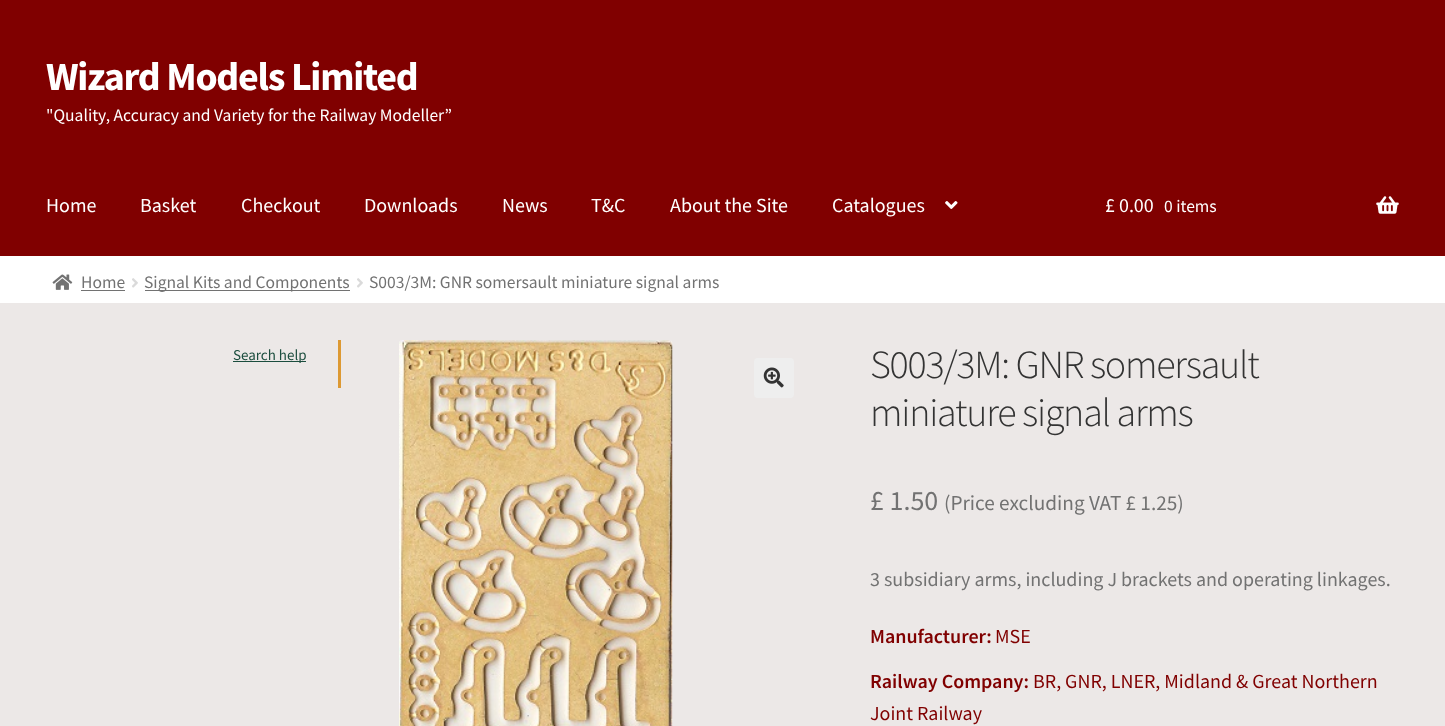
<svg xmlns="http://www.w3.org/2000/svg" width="1445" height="726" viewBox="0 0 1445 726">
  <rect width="100%" height="100%" fill="#fff"/>
  <path d="M0 0h1445v256H0z" fill="#800000"/>
  <image x="945" y="201" width="13" height="8" href="img/1.png"/>
  <image x="1376" y="196" width="23" height="18" href="img/2.png"/>
  <image x="52" y="274" width="21" height="16" href="img/3.png"/>
  <path d="M81 290h44v1H81z" fill="#727272"/>
  <image x="132" y="278" width="6" height="10" href="img/4.png"/>
  <path d="M145 290h205v1H145z" fill="#727272"/>
  <image x="357" y="278" width="6" height="10" href="img/4.png"/>
  <path d="M0 303h1445v423H0z" fill="#ece8e7"/>
  <path d="M338 340h3v48H338z" fill="#d93"/>
  <path d="M233 361h73v1H233z" fill="#1b4d3e"/>
  <image x="399" y="340" width="274" height="386" href="img/5.png"/>
  <rect x="754" y="358" width="40" height="40" rx="4" fill="#eee"/>
  <image x="763" y="367" width="21" height="21" href="img/6.png"/>
  <text x="46" y="90" font-family="Source Sans Pro" font-size="40" font-weight="bold" letter-spacing="-1.25" fill="#fff">Wizard Models Limited</text>
  <text x="46" y="121" font-family="Source Sans Pro" font-size="17.5" fill="#fff">"Quality, Accuracy and Variety for the Railway Modeller”</text>
  <g font-family="Source Sans Pro" font-size="20" fill="#fff">
    <text x="46" y="212">Home</text>
    <text x="140" y="212">Basket</text>
    <text x="241" y="212">Checkout</text>
    <text x="364" y="212">Downloads</text>
    <text x="502" y="212">News</text>
    <text x="591" y="212">T&amp;C</text>
    <text x="670" y="212">About the Site</text>
    <text x="832" y="212">Catalogues</text>
    <text x="1105" y="212">£ 0.00</text>
  </g>
  <text x="1164" y="212" font-family="Source Sans Pro" font-size="17.5" fill="#fff">0 items</text>
  <g font-family="Source Sans Pro" font-size="17.5" fill="#727272">
    <text x="81" y="288">Home</text>
    <text x="144" y="288">Signal Kits and Components</text>
    <text x="369" y="288">S003/3M: GNR somersault miniature signal arms</text>
  </g>
  <text x="233" y="360" font-family="Source Sans Pro" font-size="15" fill="#1b4d3e">Search help</text>
  <g font-family="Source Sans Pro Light" font-size="40" font-weight="300" letter-spacing="-1.25" fill="#333">
    <text x="870" y="378">S003/3M: GNR somersault</text>
    <text x="870" y="426">miniature signal arms</text>
  </g>
  <text x="870" y="510" font-family="Source Sans Pro" font-size="28" fill="#727272">£ 1.50</text>
  <text x="944" y="510" font-family="Source Sans Pro" font-size="21.25" fill="#727272">(Price excluding VAT £ 1.25)</text>
  <text x="870" y="586" font-family="Source Sans Pro" font-size="20" fill="#727272">3 subsidiary arms, including J brackets and operating linkages.</text>
  <text x="870" y="643" font-family="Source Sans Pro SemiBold" font-size="20" font-weight="600" fill="#800000">Manufacturer:</text>
  <text x="995" y="643" font-family="Source Sans Pro" font-size="20" fill="#800000">MSE</text>
  <text x="870" y="688" font-family="Source Sans Pro SemiBold" font-size="20" font-weight="600" fill="#800000">Railway Company:</text>
  <g font-family="Source Sans Pro" font-size="20" fill="#800000">
    <text x="1033" y="688">BR, GNR, LNER, Midland &amp; Great Northern</text>
    <text x="870" y="720">Joint Railway</text>
  </g>
</svg>
